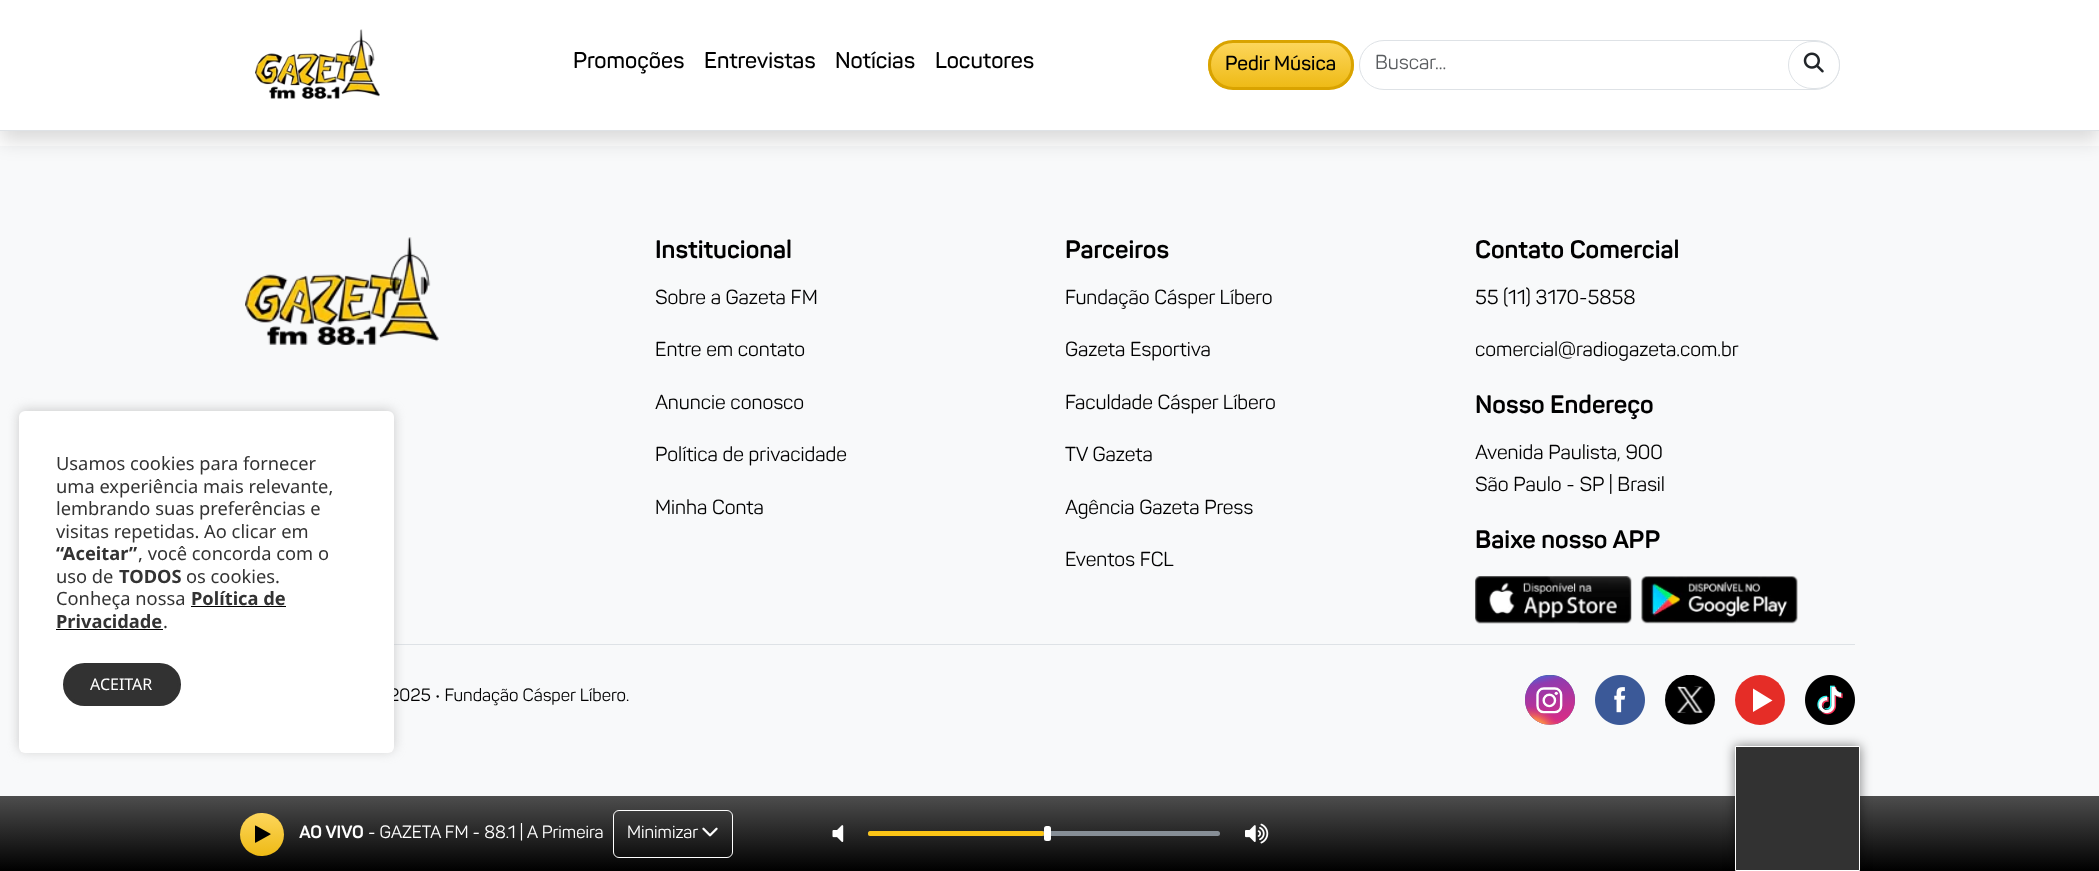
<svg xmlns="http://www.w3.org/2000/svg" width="2099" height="871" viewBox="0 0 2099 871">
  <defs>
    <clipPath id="clip1"><rect x="1208" y="40" width="146" height="50" rx="25"/></clipPath>
    <linearGradient id="g1" gradientUnits="userSpaceOnUse" x1="1281" y1="42" x2="1281" y2="88"><stop offset="0" stop-color="#fdd65c"/><stop offset="1" stop-color="#eeba15"/></linearGradient>
    <linearGradient id="g2" gradientUnits="userSpaceOnUse" x1="1050" y1="796" x2="1050" y2="871"><stop offset="0" stop-color="#4d4d4d"/><stop offset="1" stop-color="#000"/></linearGradient>
    <linearGradient id="g3" gradientUnits="userSpaceOnUse" x1="262" y1="813" x2="262" y2="856"><stop offset="0" stop-color="#fdd65c"/><stop offset="1" stop-color="#eeba15"/></linearGradient>
  </defs>
  <rect width="100%" height="100%" fill="#fff"/>
  <path d="M0 146h2099v650H0z" fill="#f8f9fa"/>
  <path d="M0 10h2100v131H0z" fill="#00000026" filter="blur(10px)"/>
  <path d="M0 0h2099v130H0z" fill="#fff"/>
  <path d="M0 130h2099v1H0z" fill="#dee2e6"/>
  <image x="255" y="29" width="125" height="70" href="img/1.png"/>
  <g clip-path="url(#clip1)">
    <path d="M1208 43h146v45H1208z" fill="url(#g1)"/>
  </g>
  <rect x="1209.5" y="41.5" width="143" height="47" rx="23.5" fill="none" stroke="#d9a300" stroke-width="3"/>
  <rect x="1359.5" y="40.5" width="480" height="49" rx="24.5" fill="none" stroke="#dee2e6"/>
  <rect x="1788.5" y="41.5" width="51" height="47" rx="23.5" fill="#fff" stroke="#dee2e6"/>
  <image x="1803" y="52" width="21" height="21" href="img/2.png"/>
  <path d="M394 644h1461v1H394z" fill="#dee2e6"/>
  <rect x="19" y="410" width="375" height="341" rx="6" fill="#acabab99" filter="blur(6px)"/>
  <image x="245" y="237" width="194" height="108" href="img/3.png"/>
  <image x="1475" y="576" width="157" height="48" href="img/4.png"/>
  <image x="1641" y="576" width="157" height="48" href="img/5.png"/>
  <image x="1525" y="675" width="50" height="50" href="img/6.png"/>
  <image x="1595" y="675" width="50" height="50" href="img/7.png"/>
  <image x="1665" y="675" width="50" height="50" href="img/8.png"/>
  <circle cx="1760" cy="700" r="25" fill="#e52d27"/>
  <path d="M1753 688.5V712L1772.5 700.5Z" fill="#fff" fill-rule="evenodd"/>
  <image x="1805" y="675" width="50" height="50" href="img/9.png"/>
  <path d="M0 796h2099v75H0z" fill="url(#g2)"/>
  <rect x="240" y="813" width="44" height="43" rx="21.5" fill="url(#g3)"/>
  <image x="255" y="825" width="16" height="18" href="img/10.png"/>
  <rect x="613.5" y="810.5" width="119" height="47" rx="5.5" fill="none" stroke="#fff"/>
  <image x="702" y="827" width="16" height="10" href="img/11.png"/>
  <image x="832" y="825" width="12" height="17" href="img/12.png"/>
  <rect x="868" y="831" width="352" height="5" rx="2.5" fill="#868e96"/>
  <rect x="868" y="831" width="176" height="5" rx="2.5" fill="#fbc416"/>
  <rect x="1044" y="826" width="7" height="15" rx="2.5" fill="#fff"/>
  <image x="1245" y="823" width="24" height="21" href="img/13.png"/>
  <path d="M1735 746h125v125H1735z" fill="#00000080" filter="blur(6px)"/>
  <path d="M1735.5 746.5h124v124H1735.5z" fill="#323232" stroke="#fff"/>
  <g font-family="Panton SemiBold" font-size="22.5" font-weight="600" fill="#000">
    <text x="573" y="68">Promoções</text>
    <text x="704" y="68">Entrevistas</text>
    <text x="835" y="68">Notícias</text>
    <text x="935" y="68">Locutores</text>
  </g>
  <text x="1225" y="70" font-family="Panton SemiBold" font-size="20" font-weight="600" fill="#000">Pedir Música</text>
  <text x="1375" y="69" font-family="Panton" font-size="20" fill="#595c5f">Buscar...</text>
  <text x="655" y="258" font-family="Panton" font-size="25" font-weight="bold" fill="#000">Institucional</text>
  <g font-family="Panton" font-size="20" fill="#000">
    <text x="655" y="304">Sobre a Gazeta FM</text>
    <text x="655" y="356">Entre em contato</text>
    <text x="655" y="409">Anuncie conosco</text>
    <text x="655" y="461">Política de privacidade</text>
    <text x="655" y="514">Minha Conta</text>
  </g>
  <text x="1065" y="258" font-family="Panton" font-size="25" font-weight="bold" fill="#000">Parceiros</text>
  <g font-family="Panton" font-size="20" fill="#000">
    <text x="1065" y="304">Fundação Cásper Líbero</text>
    <text x="1065" y="356">Gazeta Esportiva</text>
    <text x="1065" y="409">Faculdade Cásper Líbero</text>
    <text x="1065" y="461">TV Gazeta</text>
    <text x="1065" y="514">Agência Gazeta Press</text>
    <text x="1065" y="566">Eventos FCL</text>
  </g>
  <text x="1475" y="258" font-family="Panton" font-size="25" font-weight="bold" fill="#000">Contato Comercial</text>
  <g font-family="Panton" font-size="20" fill="#000">
    <text x="1475" y="304">55 (11) 3170-5858</text>
    <text x="1475" y="356">comercial@radiogazeta.com.br</text>
  </g>
  <text x="1475" y="413" font-family="Panton" font-size="25" font-weight="bold" fill="#000">Nosso Endereço</text>
  <g font-family="Panton" font-size="20" fill="#000">
    <text x="1475" y="459">Avenida Paulista, 900</text>
    <text x="1475" y="491">São Paulo - SP | Brasil</text>
  </g>
  <text x="1475" y="548" font-family="Panton" font-size="25" font-weight="bold" fill="#000">Baixe nosso APP</text>
  <text x="389" y="701" font-family="Panton" font-size="17.5" fill="#000">2025 • Fundação Cásper Líbero.</text>
  <rect x="19" y="411" width="375" height="342" rx="6" fill="#fff"/>
  <rect x="64.5" y="664.5" width="115" height="40" rx="20" fill="#323232" stroke="#323232" stroke-width="3"/>
  <text x="90" y="690" font-family="Noto Sans" font-size="16" fill="#fff">ACEITAR</text>
  <text x="163" y="628" font-family="Noto Sans" font-size="18.3" fill="#333">.</text>
  <text x="56" y="628" font-family="Noto Sans" font-size="18.3" font-weight="bold" fill="#333">Privacidade</text>
  <path d="M56 629h107v1H56z" fill="#000"/>
  <text x="191" y="605" font-family="Noto Sans" font-size="18.3" font-weight="bold" fill="#333">Política de</text>
  <path d="M191 606h95v1H191z" fill="#000"/>
  <g font-family="Noto Sans" font-size="18.3" fill="#333">
    <text x="56" y="605">Conheça nossa</text>
    <text x="186" y="583">os cookies.</text>
  </g>
  <text x="119" y="583" font-family="Noto Sans" font-size="18.3" font-weight="bold" fill="#333">TODOS</text>
  <g font-family="Noto Sans" font-size="18.3" fill="#333">
    <text x="56" y="583">uso de</text>
    <text x="138" y="560">, você concorda com o</text>
  </g>
  <text x="56" y="560" font-family="Noto Sans" font-size="18.3" font-weight="bold" fill="#333">“Aceitar”</text>
  <g font-family="Noto Sans" font-size="18.3" fill="#333">
    <text x="56" y="538">visitas repetidas. Ao clicar em</text>
    <text x="56" y="515">lembrando suas preferências e</text>
    <text x="56" y="493">uma experiência mais relevante,</text>
    <text x="56" y="470">Usamos cookies para fornecer</text>
  </g>
  <text x="299" y="838" font-family="Panton" font-size="17.5" font-weight="bold" fill="#fff">AO VIVO</text>
  <g font-family="Panton" font-size="17.5" fill="#fff">
    <text x="368" y="838">- GAZETA FM - 88.1 | A Primeira</text>
    <text x="627" y="838">Minimizar</text>
  </g>
</svg>
